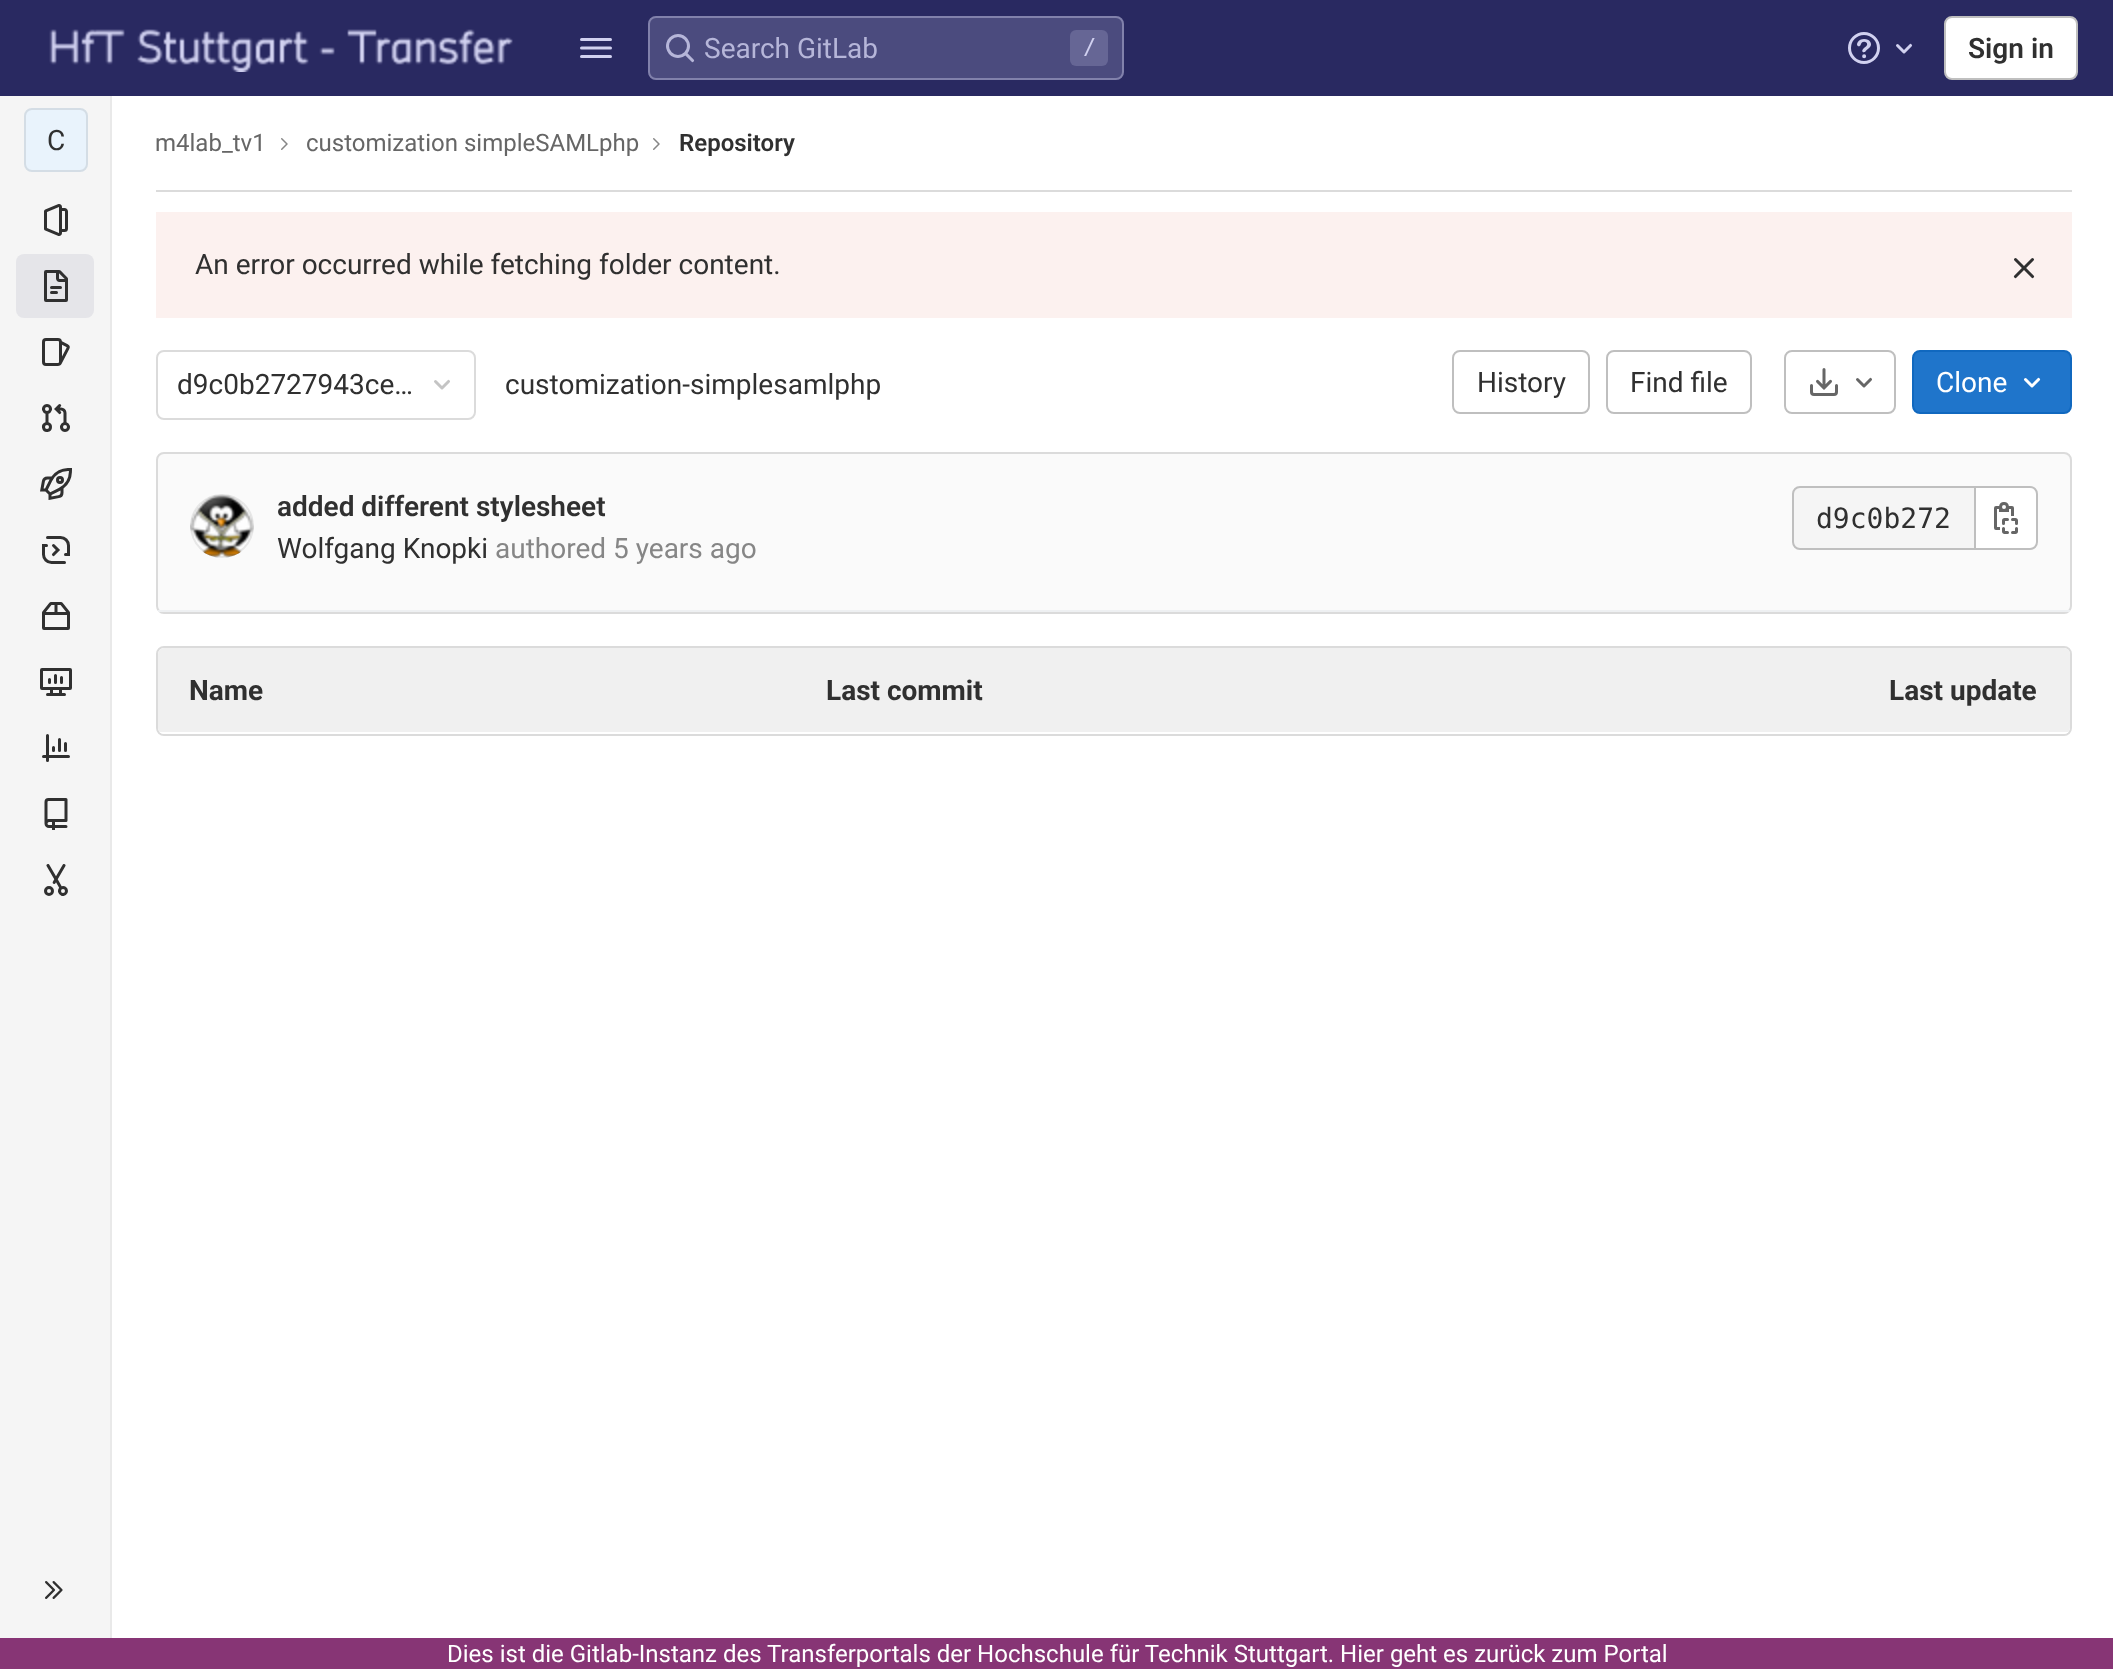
<svg xmlns="http://www.w3.org/2000/svg" width="2113" height="1669" viewBox="0 0 2113 1669">
  <defs>
    <clipPath id="clip1"><rect x="158" y="648" width="1912" height="86" rx="6"/></clipPath>
  </defs>
  <rect width="100%" height="100%" fill="#fff"/>
  <path d="M0 0h2113v96H0z" fill="#292961"/>
  <image x="49" y="29" width="464" height="43" href="img/1.png"/>
  <image x="580" y="38" width="32" height="20" href="img/2.png"/>
  <rect x="648" y="16" width="476" height="64" rx="8" fill="#4b4b7e"/>
  <rect x="649" y="17" width="474" height="62" rx="7" fill="none" stroke="#d1d1f066" stroke-width="2"/>
  <image x="666" y="34" width="29" height="29" href="img/3.png"/>
  <rect x="1070" y="30" width="38" height="36" rx="6" fill="#666695"/>
  <image x="1848" y="32" width="32" height="32" href="img/4.png"/>
  <image x="1896" y="43" width="17" height="11" href="img/5.png"/>
  <rect x="1945" y="17" width="132" height="62" rx="7" fill="#fff" stroke="#bfbfbf" stroke-width="2"/>
  <path d="M0 96h110v1542H0z" fill="#f5f5f5"/>
  <path d="M110 96h2v1542H110z" fill="#e9e9e9"/>
  <rect x="24" y="108" width="64" height="64" rx="8" fill="#e9f3fc"/>
  <rect x="25" y="109" width="62" height="62" rx="7" fill="none" stroke="#1f1f1f1a" stroke-width="2"/>
  <image x="44" y="204" width="24" height="32" href="img/6.png"/>
  <rect x="16" y="254" width="78" height="64" rx="8" fill="#e5e5e9"/>
  <image x="44" y="270" width="24" height="32" href="img/7.png"/>
  <image x="42" y="338" width="28" height="28" href="img/8.png"/>
  <image x="41" y="404" width="29" height="28" href="img/9.png"/>
  <image x="40" y="468" width="32" height="32" href="img/10.png"/>
  <image x="42" y="536" width="28" height="28" href="img/11.png"/>
  <image x="42" y="602" width="28" height="28" href="img/12.png"/>
  <image x="40" y="668" width="32" height="28" href="img/13.png"/>
  <image x="42" y="734" width="28" height="28" href="img/14.png"/>
  <image x="44" y="798" width="24" height="32" href="img/15.png"/>
  <image x="44" y="864" width="24" height="32" href="img/16.png"/>
  <image x="45" y="1581" width="18" height="18" href="img/17.png"/>
  <path d="M156 190h1916v2H156z" fill="#dbdbdb"/>
  <image x="281" y="138" width="7" height="12" href="img/18.png"/>
  <image x="653" y="138" width="7" height="12" href="img/18.png"/>
  <path d="M156 212h1916v106H156z" fill="#fcf1ef"/>
  <image x="2013" y="258" width="22" height="21" href="img/19.png"/>
  <rect x="157" y="351" width="318" height="68" rx="7" fill="none" stroke="#dbdbdb" stroke-width="2"/>
  <image x="434" y="379" width="16" height="11" href="img/20.png"/>
  <rect x="1453" y="351" width="136" height="62" rx="7" fill="none" stroke="#bfbfbf" stroke-width="2"/>
  <rect x="1607" y="351" width="144" height="62" rx="7" fill="none" stroke="#bfbfbf" stroke-width="2"/>
  <rect x="1785" y="351" width="110" height="62" rx="7" fill="none" stroke="#bfbfbf" stroke-width="2"/>
  <image x="1810" y="368" width="28" height="28" href="img/21.png"/>
  <image x="1856" y="377" width="16" height="11" href="img/22.png"/>
  <rect x="1913" y="351" width="158" height="62" rx="7" fill="#1f75cb" stroke="#1068bf" stroke-width="2"/>
  <image x="2023" y="377" width="18" height="11" href="img/23.png"/>
  <rect x="157" y="453" width="1914" height="160" rx="7" fill="#fafafa" stroke="#dbdbdb" stroke-width="2"/>
  <path d="M158 610h1912v2H158z" fill="#eef0f2"/>
  <circle cx="222" cy="526" r="31" fill="#fdfdfd" stroke="#e7e7e7" stroke-width="2"/>
  <image x="190" y="494" width="64" height="64" href="img/24.png"/>
  <path d="M1800 487H1975V549H1800C1796 549 1793 546 1793 542V494C1793 490 1796 487 1800 487Z" fill="#f5f5f5" stroke="#bfbfbf" stroke-width="2"/>
  <path d="M1975 487H2030C2034 487 2037 490 2037 494V542C2037 546 2034 549 2030 549H1975Z" fill="#fff" stroke="#bfbfbf" stroke-width="2"/>
  <image x="1994" y="502" width="24" height="32" href="img/25.png"/>
  <rect x="157" y="647" width="1914" height="88" rx="7" fill="none" stroke="#dbdbdb" stroke-width="2"/>
  <g clip-path="url(#clip1)">
    <path d="M158 648h1912v2H158z" fill="#f0f0f0"/>
    <path d="M158 650H794V734H164C160.5 734 158 731.5 158 728Z" fill="#f0f0f0"/>
    <path d="M1432 650H2070V728C2070 731.5 2067.5 734 2064 734H1432Z" fill="#f0f0f0"/>
    <path d="M158 732h1912v2H158z" fill="#fff"/>
  </g>
  <path d="M794 650h638v82H794z" fill="#f0f0f0"/>
  <path d="M0 1638h2113v31H0z" fill="#873575"/>
  <text x="704" y="58" font-family="Roboto" font-size="28" fill="#b6b6d9">Search GitLab</text>
  <text x="1083" y="54" font-family="DejaVu Sans Mono" font-size="22" fill="#d1d1f0">/</text>
  <text x="1968" y="58" font-family="Roboto" font-size="28" font-weight="600" fill="#303030">Sign in</text>
  <text x="47" y="150" font-family="Roboto" font-size="28" fill="#303030">C</text>
  <g font-family="Roboto" font-size="24" fill="#666">
    <text x="155" y="151">m4lab_tv1</text>
    <text x="306" y="151">customization simpleSAMLphp</text>
  </g>
  <text x="679" y="151" font-family="Roboto" font-size="24" font-weight="600" fill="#303030">Repository</text>
  <g font-family="Roboto" font-size="28" fill="#303030">
    <text x="195" y="274">An error occurred while fetching folder content.</text>
    <text x="177" y="394">d9c0b2727943ce…</text>
    <text x="505" y="394">customization-simplesamlphp</text>
    <text x="1477" y="392">History</text>
    <text x="1630" y="392">Find file</text>
  </g>
  <text x="1936" y="392" font-family="Roboto" font-size="28" fill="#fff">Clone</text>
  <text x="277" y="516" font-family="Roboto" font-size="28" font-weight="600" fill="#303030">added different stylesheet</text>
  <text x="277" y="558" font-family="Roboto" font-size="28" fill="#303030">Wolfgang Knopki</text>
  <text x="495" y="558" font-family="Roboto" font-size="28" fill="#868686">authored 5 years ago</text>
  <text x="1816" y="528" font-family="DejaVu Sans Mono" font-size="28" fill="#303030">d9c0b272</text>
  <g font-family="Roboto" font-size="28" font-weight="bold" fill="#303030">
    <text x="189" y="700">Name</text>
    <text x="826" y="700">Last commit</text>
    <text x="1889" y="700">Last update</text>
  </g>
  <text x="447" y="1662" font-family="Roboto" font-size="24" fill="#fff">Dies ist die Gitlab-Instanz des Transferportals der Hochschule für Technik Stuttgart. Hier geht es zurück zum Portal</text>
</svg>
